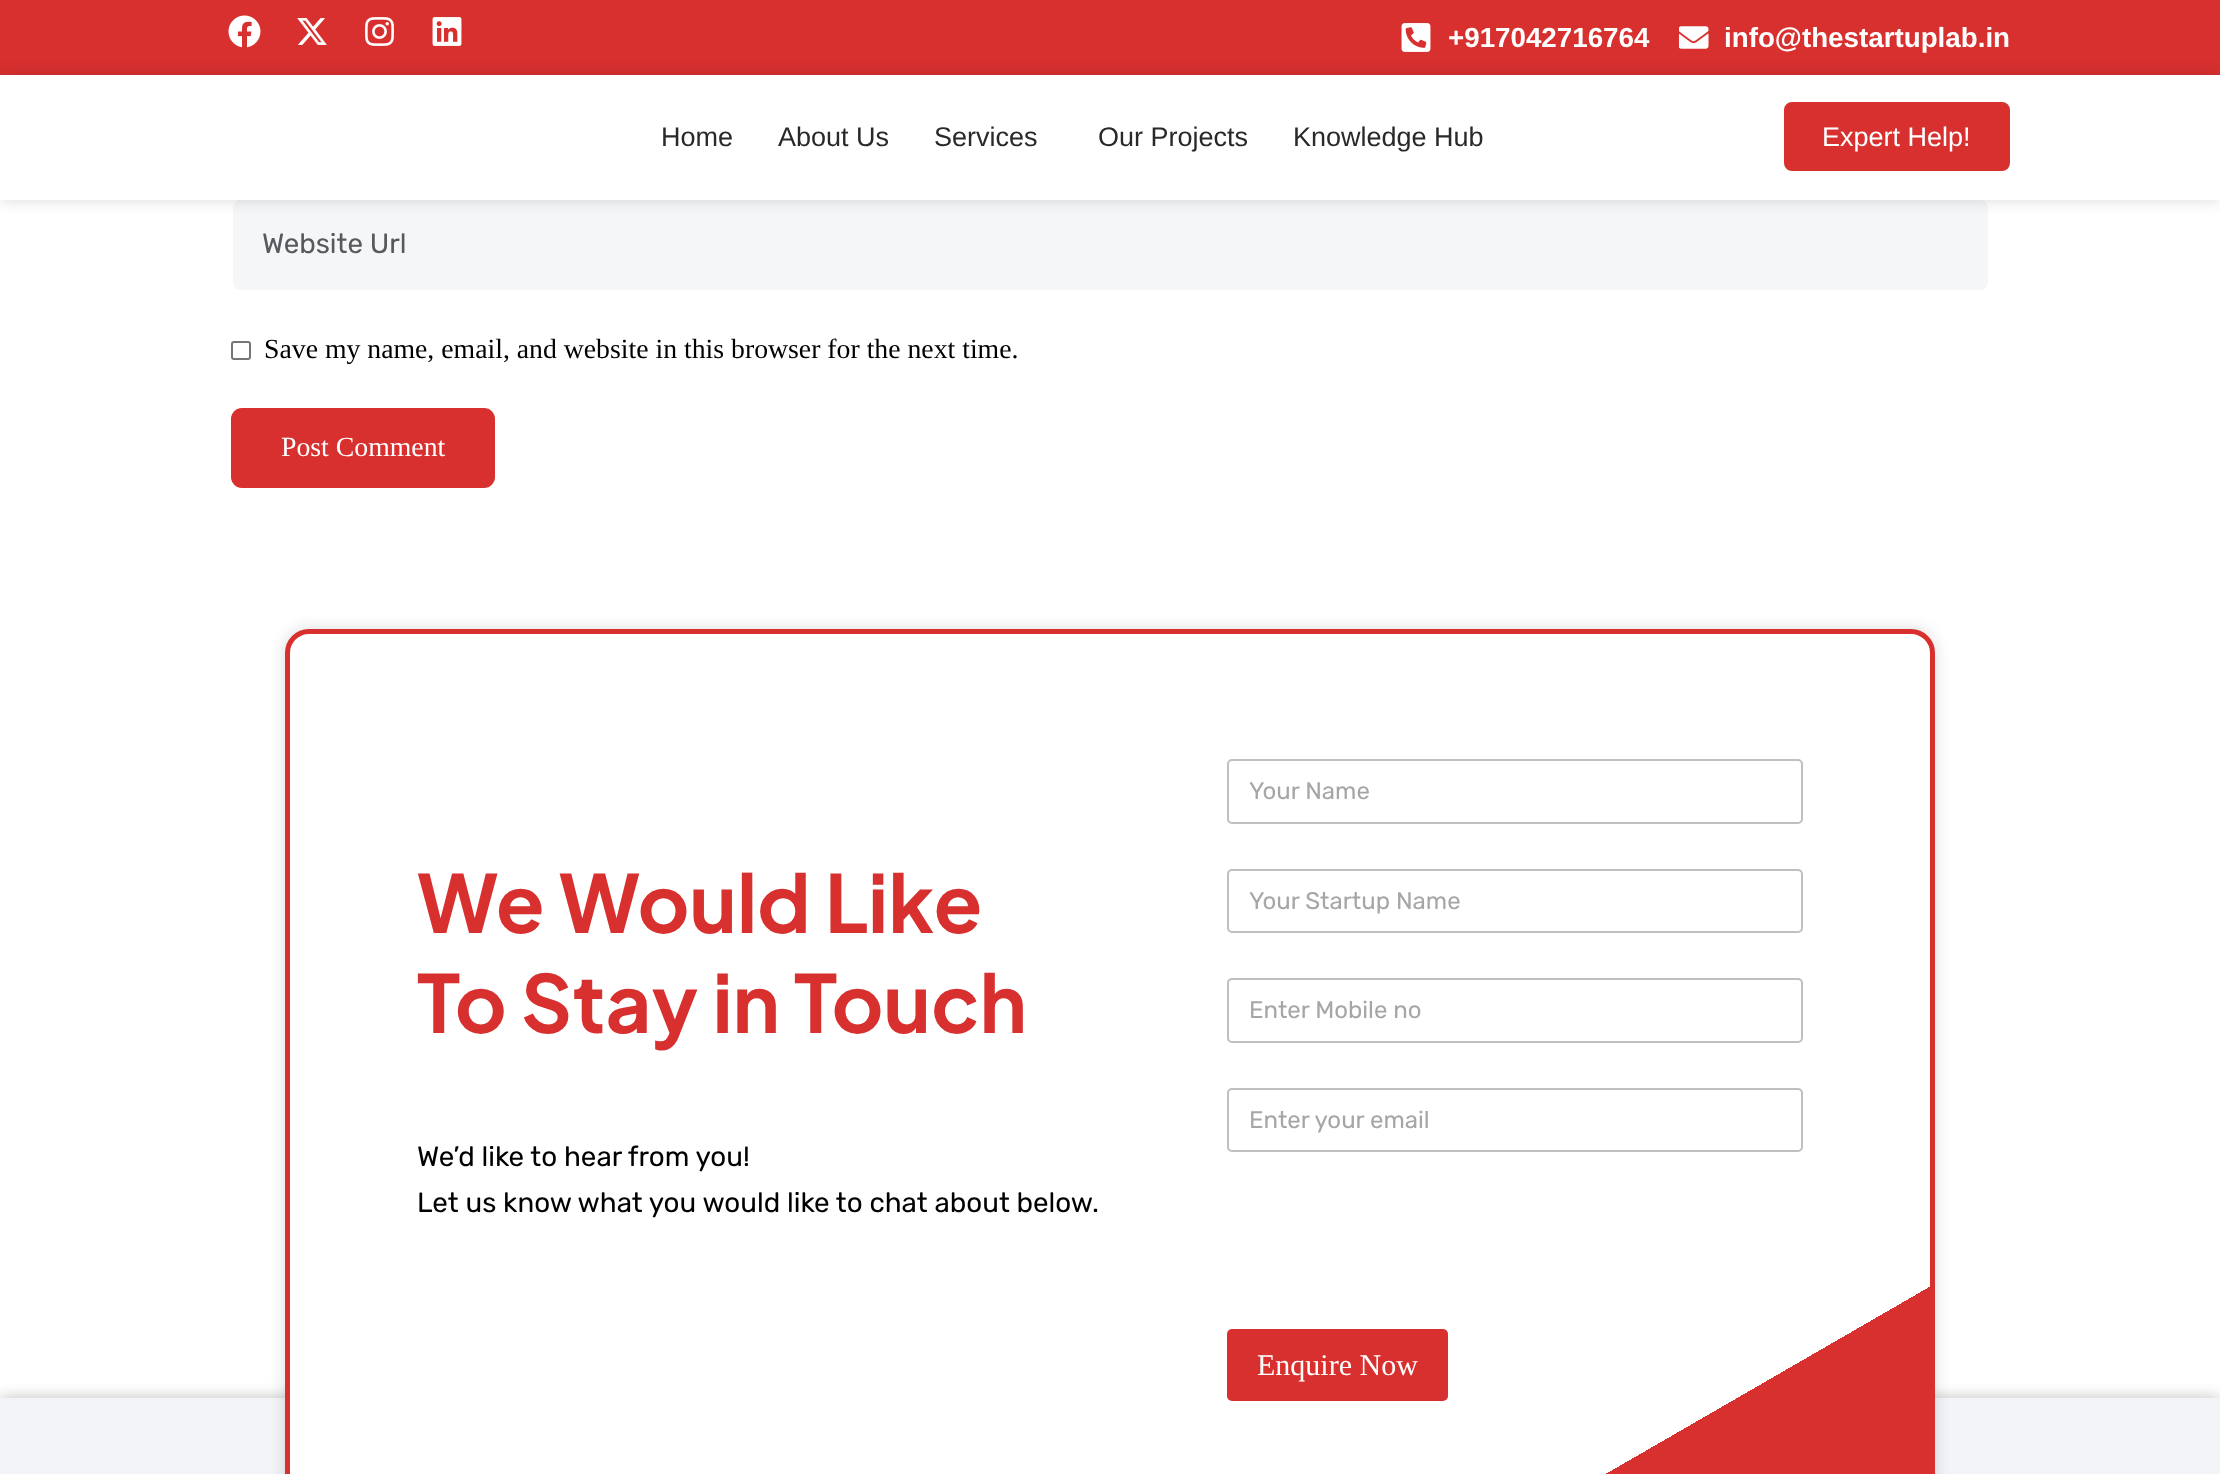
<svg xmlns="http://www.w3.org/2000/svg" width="2220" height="1474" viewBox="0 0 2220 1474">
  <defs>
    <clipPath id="clip1"><rect x="285" y="629" width="1650" height="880" rx="24"/></clipPath>
    <linearGradient id="g1" gradientUnits="userSpaceOnUse" x1="716" y1="387" x2="1504" y2="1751"><stop offset="0.88" stop-color="#fff"/><stop offset="0.88" stop-color="#d8302f"/></linearGradient>
  </defs>
  <rect width="100%" height="100%" fill="#fff"/>
  <path d="M0 0h2220v75H0z" fill="#d8302f"/>
  <image x="228" y="15" width="33" height="33" href="img/1.png"/>
  <image x="297" y="18" width="30" height="27" href="img/2.png"/>
  <image x="365" y="17" width="29" height="29" href="img/3.png"/>
  <image x="432" y="17" width="30" height="29" href="img/4.png"/>
  <image x="1401" y="23" width="30" height="29" href="img/5.png"/>
  <image x="1679" y="26" width="30" height="23" href="img/6.png"/>
  <rect x="233" y="200" width="1755" height="90" rx="8" fill="#f5f6f8"/>
  <path d="M0 75h2220v125H0z" fill="#00000026" filter="blur(7.5px)"/>
  <path d="M0 75h2220v125H0z" fill="#fff"/>
  <rect x="1785.5" y="103.5" width="223" height="66" rx="6.5" fill="#d8302f" stroke="#d8302f" stroke-width="3"/>
  <rect x="232" y="342" width="18" height="17" rx="2" fill="none" stroke="#767676" stroke-width="2"/>
  <rect x="231" y="408" width="264" height="80" rx="11" fill="#d8302f"/>
  <path d="M0 1398h2220v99H0z" fill="#00000040" filter="blur(7.5px)"/>
  <path d="M0 1398h2220v76H0z" fill="#f2f4f8"/>
  <rect x="285" y="629" width="1650" height="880" rx="24" fill="#00000026" filter="blur(7.5px)"/>
  <g clip-path="url(#clip1)">
    <path d="M290 633h1641v841H290z" fill="url(#g1)"/>
  </g>
  <rect x="287.5" y="631.5" width="1645" height="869" rx="21.5" fill="none" stroke="#d8302f" stroke-width="5"/>
  <rect x="1228" y="760" width="574" height="63" rx="4" fill="none" stroke="#bfbfbf" stroke-width="2"/>
  <rect x="1228" y="870" width="574" height="62" rx="4" fill="none" stroke="#bfbfbf" stroke-width="2"/>
  <rect x="1228" y="979" width="574" height="63" rx="4" fill="none" stroke="#bfbfbf" stroke-width="2"/>
  <rect x="1228" y="1089" width="574" height="62" rx="4" fill="none" stroke="#bfbfbf" stroke-width="2"/>
  <rect x="1227" y="1329" width="221" height="72" rx="5" fill="#d8302f"/>
  <g font-family="Liberation Sans" font-size="27.75" font-weight="bold" fill="#fff">
    <text x="1448" y="47">+917042716764</text>
    <text x="1724" y="47">info@thestartuplab.in</text>
  </g>
  <g font-family="Liberation Sans" font-size="27" fill="#29292a">
    <text x="661" y="146">Home</text>
    <text x="778" y="146">About Us</text>
    <text x="934" y="146">Services</text>
    <text x="1098" y="146">Our Projects</text>
    <text x="1293" y="146">Knowledge Hub</text>
  </g>
  <text x="1822" y="146" font-family="Liberation Sans" font-size="27" fill="#fff">Expert Help!</text>
  <text x="262" y="253" font-family="Rubik" font-size="27.75" fill="#56595d">Website Url</text>
  <text x="264" y="358" font-family="Liberation Serif" font-size="27.75" fill="#000">Save my name, email, and website in this browser for the next time.</text>
  <text x="281" y="456" font-family="Liberation Serif" font-size="27.75" fill="#fff">Post Comment</text>
  <g font-family="Plus Jakarta Sans" font-size="79.75" font-weight="bold" fill="#d8302f">
    <text x="417" y="933">We Would Like</text>
    <text x="417" y="1033">To Stay in Touch</text>
  </g>
  <g font-family="Rubik" font-size="27.75" fill="#000">
    <text x="417" y="1166">We’d like to hear from you!</text>
    <text x="417" y="1212">Let us know what you would like to chat about below.</text>
  </g>
  <g font-family="Rubik" font-size="24" fill="#a6a6a6">
    <text x="1249" y="799">Your Name</text>
    <text x="1249" y="909">Your Startup Name</text>
    <text x="1249" y="1018">Enter Mobile no</text>
    <text x="1249" y="1128">Enter your email</text>
  </g>
  <text x="1257" y="1375" font-family="Liberation Serif" font-size="30" fill="#fff">Enquire Now</text>
</svg>
